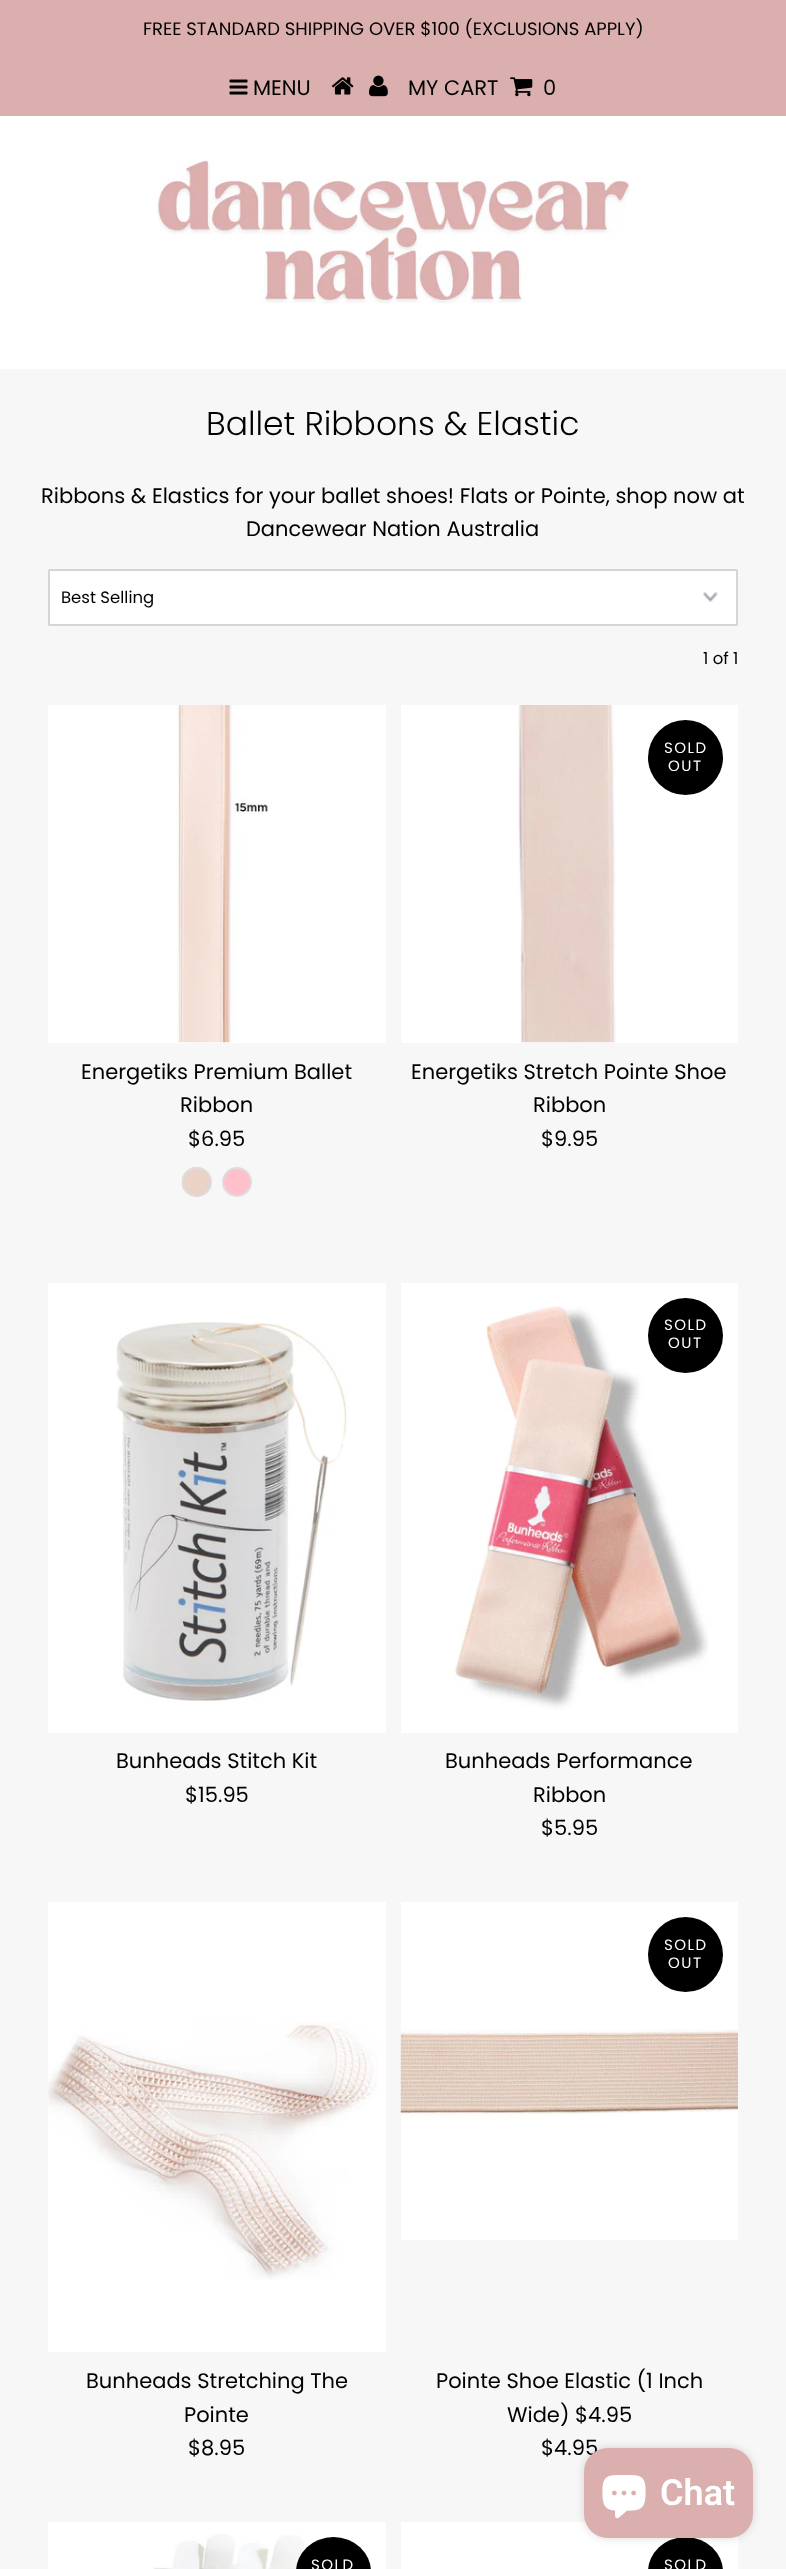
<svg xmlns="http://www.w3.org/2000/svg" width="786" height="2569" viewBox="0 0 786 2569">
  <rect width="100%" height="100%" fill="#fff"/>
  <path d="M0 0h786v116H0z" fill="#dcafaf"/>
  <image x="229" y="79" width="19" height="16" href="img/1.png"/>
  <image x="331" y="77" width="23" height="18" href="img/2.png"/>
  <image x="369" y="75" width="19" height="22" href="img/3.png"/>
  <image x="510" y="77" width="23" height="20" href="img/4.png"/>
  <image x="157" y="160" width="473" height="144" href="img/5.png"/>
  <path d="M0 369h786v2200H0z" fill="#f7f7f7"/>
  <rect x="48" y="569" width="690" height="57" rx="1.5" fill="#fff"/>
  <image x="703" y="592" width="15" height="10" href="img/6.png"/>
  <rect x="49" y="570" width="688" height="55" rx="0.5" fill="none" stroke="#d5d5d5" stroke-width="2"/>
  <path d="M48 705h338v338H48z" fill="#fff"/>
  <image x="176" y="705" width="92" height="338" href="img/7.png"/>
  <image x="181" y="1167" width="30" height="30" href="img/8.png"/>
  <circle cx="197" cy="1182" r="14" fill="none" stroke="#ddd" stroke-width="2"/>
  <circle cx="237" cy="1182" r="14" fill="#ffc0cb" stroke="#ddd" stroke-width="2"/>
  <path d="M401 705h337v338H401z" fill="#fff"/>
  <image x="517" y="705" width="99" height="338" href="img/9.png"/>
  <circle cx="685.5" cy="757.5" r="37.5" fill="#000"/>
  <path d="M48 1283h338v450H48z" fill="#fff"/>
  <image x="116" y="1322" width="232" height="380" href="img/10.png"/>
  <path d="M401 1283h337v450H401z" fill="#fff"/>
  <image x="454" y="1306" width="255" height="404" href="img/11.png"/>
  <circle cx="685.5" cy="1335.5" r="37.5" fill="#000"/>
  <path d="M48 1902h338v450H48z" fill="#fff"/>
  <image x="48" y="2022" width="330" height="258" href="img/12.png"/>
  <path d="M401 1902h337v338H401z" fill="#fff"/>
  <image x="400" y="2029" width="338" height="87" href="img/13.png"/>
  <circle cx="685.5" cy="1954.5" r="37.5" fill="#000"/>
  <path d="M48 2522h338v47H48z" fill="#fff"/>
  <image x="153" y="2534" width="160" height="35" href="img/14.png"/>
  <rect x="296" y="2537" width="75" height="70" rx="37.5" fill="#000"/>
  <path d="M401 2522h337v47H401z" fill="#fff"/>
  <rect x="648" y="2537" width="75" height="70" rx="37.5" fill="#000"/>
  <rect x="584" y="2448" width="169" height="90" rx="24" fill="#00000026" filter="blur(4px)"/>
  <text x="143" y="35" font-family="Poppins" font-size="18" fill="#000">FREE STANDARD SHIPPING OVER $100 (EXCLUSIONS APPLY)</text>
  <g font-family="Poppins" font-size="21" fill="#000">
    <text x="253" y="95">MENU</text>
    <text x="408" y="95">MY CART</text>
    <text x="543" y="95">0</text>
  </g>
  <text x="206" y="435" font-family="Poppins" font-size="33" font-weight="300" fill="#000">Ballet Ribbons &amp; Elastic</text>
  <g font-family="Poppins" font-size="21" fill="#000">
    <text x="41" y="503">Ribbons &amp; Elastics for your ballet shoes! Flats or Pointe, shop now at</text>
    <text x="246" y="536">Dancewear Nation Australia</text>
  </g>
  <g font-family="Poppins" font-size="16.5" fill="#000">
    <text x="61" y="603">Best Selling</text>
    <text x="703" y="664">1 of 1</text>
  </g>
  <g font-family="Poppins" font-size="21" fill="#000">
    <text x="81" y="1079">Energetiks Premium Ballet</text>
    <text x="180" y="1112">Ribbon</text>
    <text x="188" y="1146">$6.95</text>
  </g>
  <g font-family="Poppins" font-size="15" letter-spacing="1.5" fill="#fff">
    <text x="664" y="753">SOLD</text>
    <text x="668" y="771">OUT</text>
  </g>
  <g font-family="Poppins" font-size="21" fill="#000">
    <text x="411" y="1079">Energetiks Stretch Pointe Shoe</text>
    <text x="533" y="1112">Ribbon</text>
    <text x="541" y="1146">$9.95</text>
    <text x="116" y="1768">Bunheads Stitch Kit</text>
    <text x="185" y="1802">$15.95</text>
  </g>
  <g font-family="Poppins" font-size="15" letter-spacing="1.5" fill="#fff">
    <text x="664" y="1330">SOLD</text>
    <text x="668" y="1348">OUT</text>
  </g>
  <g font-family="Poppins" font-size="21" fill="#000">
    <text x="445" y="1768">Bunheads Performance</text>
    <text x="533" y="1802">Ribbon</text>
    <text x="541" y="1835">$5.95</text>
    <text x="86" y="2388">Bunheads Stretching The</text>
    <text x="184" y="2422">Pointe</text>
    <text x="188" y="2455">$8.95</text>
  </g>
  <g font-family="Poppins" font-size="15" letter-spacing="1.5" fill="#fff">
    <text x="664" y="1950">SOLD</text>
    <text x="668" y="1968">OUT</text>
  </g>
  <g font-family="Poppins" font-size="21" fill="#000">
    <text x="436" y="2388">Pointe Shoe Elastic (1 Inch</text>
    <text x="507" y="2422">Wide) $4.95</text>
    <text x="541" y="2455">$4.95</text>
  </g>
  <g font-family="Poppins" font-size="15" letter-spacing="1.5" fill="#fff">
    <text x="311" y="2570">SOLD</text>
    <text x="664" y="2570">SOLD</text>
  </g>
  <rect x="584" y="2448" width="169" height="90" rx="24" fill="#dcafaf"/>
  <image x="602" y="2475" width="44" height="44" href="img/15.png"/>
  <text x="660" y="2505" font-family="Roboto" font-size="36" font-weight="600" fill="#fff">Chat</text>
</svg>
